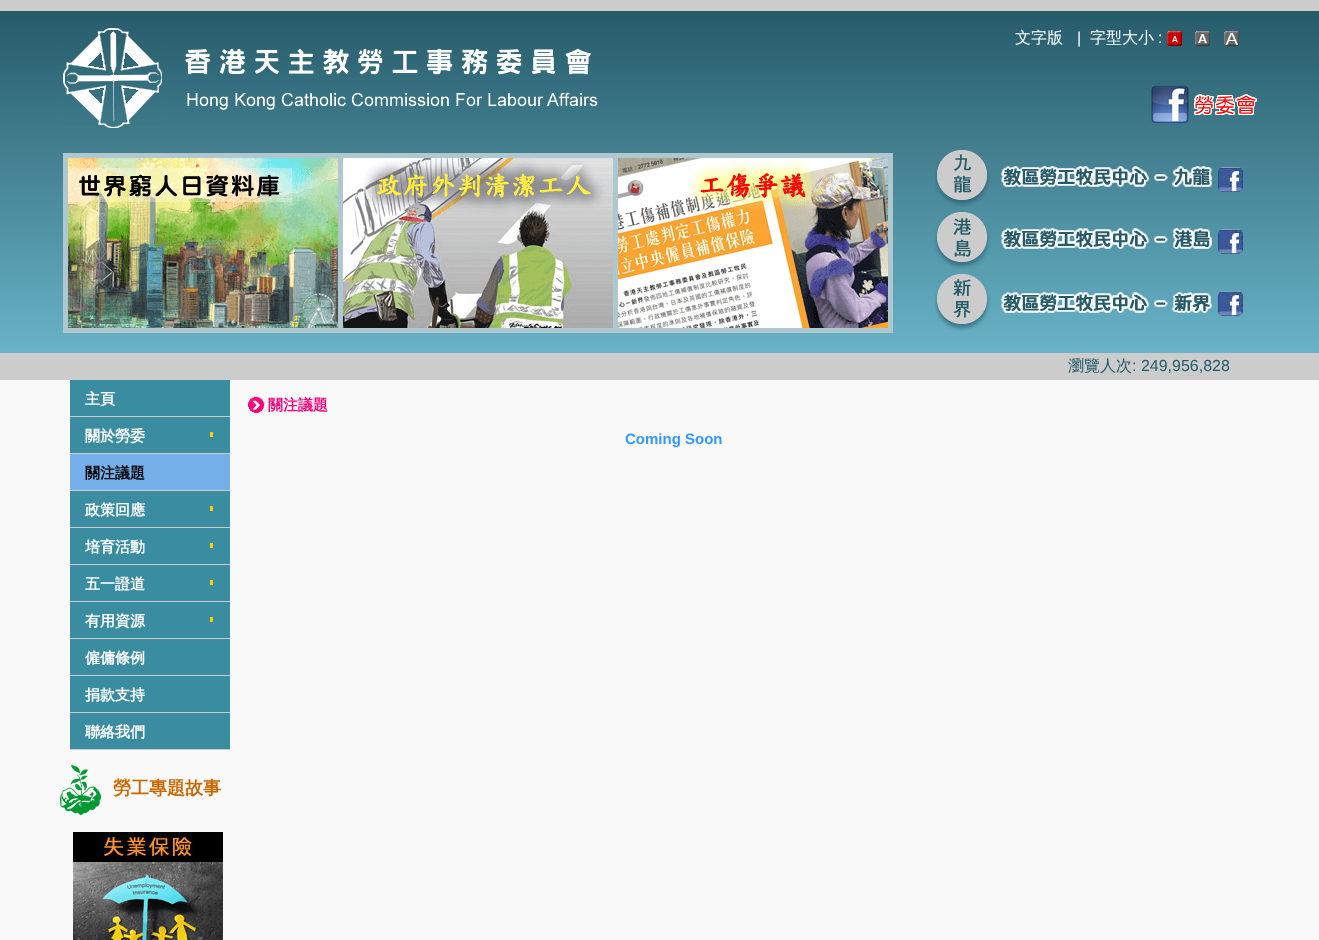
<svg xmlns="http://www.w3.org/2000/svg" width="1319" height="940" viewBox="0 0 1319 940">
  <rect width="100%" height="100%" fill="#f9f9f9"/>
  <image x="0" y="11" width="1319" height="342" href="img/1.png"/>
  <path d="M0 0h1319v11H0z" fill="#ccc"/>
  <image x="63" y="28" width="535" height="100" href="img/2.png"/>
  <image x="1167" y="31" width="15" height="15" href="img/3.png"/>
  <image x="1195" y="31" width="15" height="15" href="img/4.png"/>
  <image x="1224" y="31" width="15" height="15" href="img/5.png"/>
  <image x="1151" y="85" width="106" height="39" href="img/6.png"/>
  <image x="63" y="153" width="830" height="180" href="img/7.png"/>
  <image x="935" y="150" width="277" height="57" href="img/8.png"/>
  <image x="1218" y="167" width="25" height="25" href="img/9.png"/>
  <image x="934" y="212" width="278" height="57" href="img/10.png"/>
  <image x="1218" y="229" width="25" height="25" href="img/11.png"/>
  <image x="934" y="274" width="278" height="57" href="img/12.png"/>
  <image x="1218" y="291" width="25" height="25" href="img/13.png"/>
  <path d="M0 353h1319v27H0z" fill="#ccc"/>
  <path d="M70 416h160v1H70z" fill="#cdcccd"/>
  <path d="M70 380h160v36H70z" fill="#3a8ca1"/>
  <path d="M70 453h160v1H70z" fill="#cdcccd"/>
  <path d="M70 417h160v36H70z" fill="#3a8ca1"/>
  <path d="M210 432h3v5H210z" fill="#fc0"/>
  <path d="M70 490h160v1H70z" fill="#cdcccd"/>
  <path d="M70 454h160v36H70z" fill="#76b0ea"/>
  <path d="M70 527h160v1H70z" fill="#cdcccd"/>
  <path d="M70 491h160v36H70z" fill="#3a8ca1"/>
  <path d="M210 506h3v5H210z" fill="#fc0"/>
  <path d="M70 564h160v1H70z" fill="#cdcccd"/>
  <path d="M70 528h160v36H70z" fill="#3a8ca1"/>
  <path d="M210 543h3v5H210z" fill="#fc0"/>
  <path d="M70 601h160v1H70z" fill="#cdcccd"/>
  <path d="M70 565h160v36H70z" fill="#3a8ca1"/>
  <path d="M210 580h3v5H210z" fill="#fc0"/>
  <path d="M70 638h160v1H70z" fill="#cdcccd"/>
  <path d="M70 602h160v36H70z" fill="#3a8ca1"/>
  <path d="M210 617h3v5H210z" fill="#fc0"/>
  <path d="M70 675h160v1H70z" fill="#cdcccd"/>
  <path d="M70 639h160v36H70z" fill="#3a8ca1"/>
  <path d="M70 712h160v1H70z" fill="#cdcccd"/>
  <path d="M70 676h160v36H70z" fill="#3a8ca1"/>
  <path d="M70 749h160v1H70z" fill="#cdcccd"/>
  <path d="M70 713h160v36H70z" fill="#3a8ca1"/>
  <image x="60" y="765" width="41" height="50" href="img/14.png"/>
  <image x="73" y="832" width="150" height="108" href="img/15.png"/>
  <image x="248" y="396" width="17" height="17" href="img/16.png"/>
  <text x="1015" y="43" font-family="WenQuanYi Zen Hei" font-size="16" font-weight="500" fill="#fff">文字版</text>
  <text x="1077" y="43" font-family="Liberation Sans" font-size="16" fill="#fff">|</text>
  <text x="1090" y="43" font-family="WenQuanYi Zen Hei" font-size="16" font-weight="500" fill="#fff">字型大小</text>
  <text x="1158" y="43" font-family="Liberation Sans" font-size="16" fill="#fff">:</text>
  <text x="1068" y="371" font-family="WenQuanYi Zen Hei" font-size="16" font-weight="500" fill="#265b6a">瀏覽人次</text>
  <text x="1132" y="371" font-family="Liberation Sans" font-size="16" fill="#265b6a">: 249,956,828</text>
  <g font-family="WenQuanYi Zen Hei" font-size="15" font-weight="bold" fill="#fff">
    <text x="85" y="404">主頁</text>
    <text x="85" y="441">關於勞委</text>
  </g>
  <text x="85" y="478" font-family="WenQuanYi Zen Hei" font-size="15" font-weight="bold" fill="#000">關注議題</text>
  <g font-family="WenQuanYi Zen Hei" font-size="15" font-weight="bold" fill="#fff">
    <text x="85" y="515">政策回應</text>
    <text x="85" y="552">培育活動</text>
    <text x="85" y="589">五一證道</text>
    <text x="85" y="626">有用資源</text>
    <text x="85" y="663">僱傭條例</text>
    <text x="85" y="700">捐款支持</text>
    <text x="85" y="737">聯絡我們</text>
  </g>
  <text x="113" y="794" font-family="WenQuanYi Zen Hei" font-size="18" font-weight="bold" fill="#c60">勞工專題故事</text>
  <text x="268" y="410" font-family="WenQuanYi Zen Hei" font-size="15" font-weight="bold" fill="#ff017b">關注議題</text>
  <text x="625" y="444" font-family="Liberation Sans" font-size="15" font-weight="bold" fill="#39f">Coming Soon</text>
</svg>
